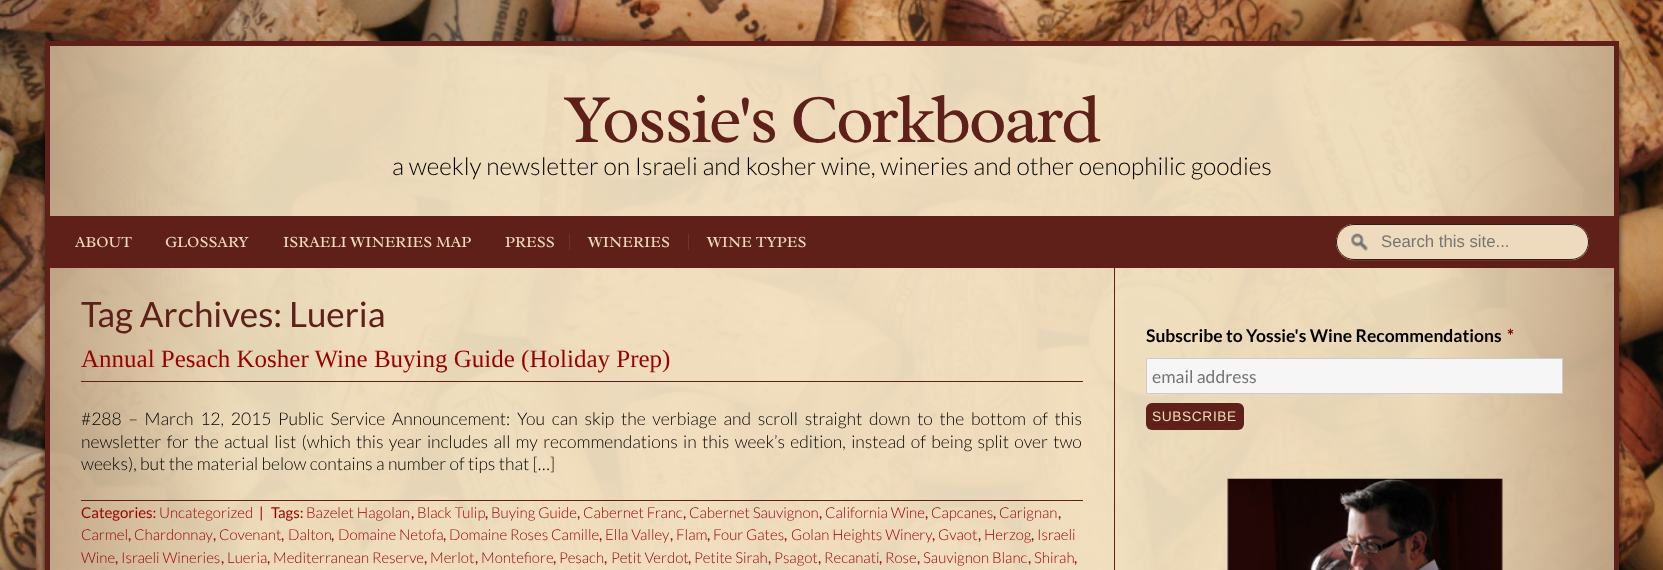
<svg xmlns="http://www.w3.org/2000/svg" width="1663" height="570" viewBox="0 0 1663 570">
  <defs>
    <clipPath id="clip1"><path d="M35 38H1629V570H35ZM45 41H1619V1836H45Z" clip-rule="evenodd"/></clipPath>
  </defs>
  <rect width="100%" height="100%" fill="#fff"/>
  <image x="0" y="0" width="1663" height="570" href="img/1.png"/>
  <g clip-path="url(#clip1)">
    <path d="M45 48h1574v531H45z" fill="#000000bf" filter="blur(3px)"/>
  </g>
  <path d="M45 41h1574v5H45z" fill="#5e2018"/>
  <path d="M1614 41h5v529H1614z" fill="#5e2018"/>
  <path d="M45 41h5v529H45z" fill="#5e2018"/>
  <path d="M50 216h1564v52H50z" fill="#5e2018"/>
  <path d="M1337 239L1336 243C1336 253 1344 261 1354 261H1571C1581 261 1589 253 1589 243L1588 239L1589 242C1589 252 1581 260 1571 260H1354C1344 260 1336 252 1336 242Z" fill="#6e362f"/>
  <rect x="1336" y="224" width="253" height="36" rx="18" fill="#eedabc"/>
  <image x="1351" y="233" width="17" height="19" href="img/2.png"/>
  <rect x="1336.5" y="224.5" width="252" height="35" rx="17.5" fill="none" stroke="#3a1713"/>
  <path d="M1114 268h1v302H1114z" fill="#5e2018"/>
  <path d="M81 381h1002v1H81z" fill="#5e2018"/>
  <path d="M81 500h1002v1H81z" fill="#5e2018"/>
  <path d="M1146.5 358.5h416v35H1146.5z" fill="#f6f6f6" stroke="#ccc"/>
  <rect x="1146" y="403" width="98" height="27" rx="6" fill="#5e2018"/>
  <image x="1227" y="478" width="276" height="92" href="img/3.png"/>
  <text x="564" y="142" font-family="Radley" font-size="70" letter-spacing="-2.5" fill="#5e2018">Yossie's Corkboard</text>
  <text x="392" y="175" font-family="Lato" font-size="24.5" font-weight="300" fill="#000">a weekly newsletter on Israeli and kosher wine, wineries and other oenophilic goodies</text>
  <g font-family="Radley" font-size="15.75" fill="#eedabc">
    <text x="75" y="247">ABOUT</text>
    <text x="165" y="247">GLOSSARY</text>
    <text x="283" y="247">ISRAELI WINERIES MAP</text>
    <text x="505" y="247">PRESS</text>
  </g>
  <text x="567" y="247" font-family="Lato" font-size="17.5" font-weight="300" fill="#773f38">|</text>
  <text x="588" y="247" font-family="Radley" font-size="15.75" fill="#eedabc">WINERIES</text>
  <text x="686" y="247" font-family="Lato" font-size="17.5" font-weight="300" fill="#773f38">|</text>
  <text x="707" y="247" font-family="Radley" font-size="15.75" fill="#eedabc">WINE TYPES</text>
  <text x="1381" y="247" font-family="Liberation Sans" font-size="16.75" fill="#757575">Search this site...</text>
  <text x="81" y="327" font-family="Lato" font-size="35" fill="#5e2018">Tag Archives: Lueria</text>
  <text x="81" y="367" font-family="Liberation Serif" font-size="25" fill="#900">Annual Pesach Kosher Wine Buying Guide (Holiday Prep)</text>
  <g font-family="Lato" font-size="17.5" font-weight="300" fill="#000">
    <text x="81" y="425" word-spacing="3.4">#288 – March 12, 2015 Public Service Announcement: You can skip the verbiage and scroll straight down to the bottom of this</text>
    <text x="81" y="448" word-spacing="1.95">newsletter for the actual list (which this year includes all my recommendations in this week’s edition, instead of being split over two</text>
    <text x="81" y="470">weeks), but the material below contains a number of tips that […]</text>
  </g>
  <text x="81" y="518" font-family="Lato" font-size="15" fill="#900">Categories:</text>
  <text x="159" y="518" font-family="Lato" font-size="15" font-weight="300" fill="#900">Uncategorized</text>
  <g font-family="Lato" font-size="15" fill="#900">
    <text x="259" y="518">|</text>
    <text x="271" y="518">Tags:</text>
  </g>
  <text x="306" y="518" font-family="Lato" font-size="15" font-weight="300" fill="#900">Bazelet Hagolan</text>
  <text x="411" y="518" font-family="Lato" font-size="15" fill="#900">,</text>
  <text x="417" y="518" font-family="Lato" font-size="15" font-weight="300" fill="#900">Black Tulip</text>
  <text x="485" y="518" font-family="Lato" font-size="15" fill="#900">,</text>
  <text x="491" y="518" font-family="Lato" font-size="15" font-weight="300" fill="#900">Buying Guide</text>
  <text x="577" y="518" font-family="Lato" font-size="15" fill="#900">,</text>
  <text x="583" y="518" font-family="Lato" font-size="15" font-weight="300" fill="#900">Cabernet Franc</text>
  <text x="683" y="518" font-family="Lato" font-size="15" fill="#900">,</text>
  <text x="689" y="518" font-family="Lato" font-size="15" font-weight="300" fill="#900">Cabernet Sauvignon</text>
  <text x="819" y="518" font-family="Lato" font-size="15" fill="#900">,</text>
  <text x="825" y="518" font-family="Lato" font-size="15" font-weight="300" fill="#900">California Wine</text>
  <text x="925" y="518" font-family="Lato" font-size="15" fill="#900">,</text>
  <text x="931" y="518" font-family="Lato" font-size="15" font-weight="300" fill="#900">Capcanes</text>
  <text x="993" y="518" font-family="Lato" font-size="15" fill="#900">,</text>
  <text x="999" y="518" font-family="Lato" font-size="15" font-weight="300" fill="#900">Carignan</text>
  <text x="1058" y="518" font-family="Lato" font-size="15" fill="#900">,</text>
  <text x="81" y="540" font-family="Lato" font-size="15" font-weight="300" fill="#900">Carmel</text>
  <text x="128" y="540" font-family="Lato" font-size="15" fill="#900">,</text>
  <text x="134" y="540" font-family="Lato" font-size="15" font-weight="300" fill="#900">Chardonnay</text>
  <text x="213" y="540" font-family="Lato" font-size="15" fill="#900">,</text>
  <text x="219" y="540" font-family="Lato" font-size="15" font-weight="300" fill="#900">Covenant</text>
  <text x="281" y="540" font-family="Lato" font-size="15" fill="#900">,</text>
  <text x="288" y="540" font-family="Lato" font-size="15" font-weight="300" fill="#900">Dalton</text>
  <text x="331" y="540" font-family="Lato" font-size="15" fill="#900">,</text>
  <text x="338" y="540" font-family="Lato" font-size="15" font-weight="300" fill="#900">Domaine Netofa</text>
  <text x="443" y="540" font-family="Lato" font-size="15" fill="#900">,</text>
  <text x="449" y="540" font-family="Lato" font-size="15" font-weight="300" fill="#900">Domaine Roses Camille</text>
  <text x="599" y="540" font-family="Lato" font-size="15" fill="#900">,</text>
  <text x="605" y="540" font-family="Lato" font-size="15" font-weight="300" fill="#900">Ella Valley</text>
  <text x="670" y="540" font-family="Lato" font-size="15" fill="#900">,</text>
  <text x="676" y="540" font-family="Lato" font-size="15" font-weight="300" fill="#900">Flam</text>
  <text x="707" y="540" font-family="Lato" font-size="15" fill="#900">,</text>
  <text x="713" y="540" font-family="Lato" font-size="15" font-weight="300" fill="#900">Four Gates</text>
  <text x="784" y="540" font-family="Lato" font-size="15" fill="#900">,</text>
  <text x="791" y="540" font-family="Lato" font-size="15" font-weight="300" fill="#900">Golan Heights Winery</text>
  <text x="932" y="540" font-family="Lato" font-size="15" fill="#900">,</text>
  <text x="938" y="540" font-family="Lato" font-size="15" font-weight="300" fill="#900">Gvaot</text>
  <text x="978" y="540" font-family="Lato" font-size="15" fill="#900">,</text>
  <text x="984" y="540" font-family="Lato" font-size="15" font-weight="300" fill="#900">Herzog</text>
  <text x="1031" y="540" font-family="Lato" font-size="15" fill="#900">,</text>
  <g font-family="Lato" font-size="15" font-weight="300" fill="#900">
    <text x="1037" y="540">Israeli</text>
    <text x="81" y="563">Wine</text>
  </g>
  <text x="115" y="563" font-family="Lato" font-size="15" fill="#900">,</text>
  <text x="121" y="563" font-family="Lato" font-size="15" font-weight="300" fill="#900">Israeli Wineries</text>
  <text x="221" y="563" font-family="Lato" font-size="15" fill="#900">,</text>
  <text x="227" y="563" font-family="Lato" font-size="15" font-weight="300" fill="#900">Lueria</text>
  <text x="267" y="563" font-family="Lato" font-size="15" fill="#900">,</text>
  <text x="273" y="563" font-family="Lato" font-size="15" font-weight="300" fill="#900">Mediterranean Reserve</text>
  <text x="424" y="563" font-family="Lato" font-size="15" fill="#900">,</text>
  <text x="430" y="563" font-family="Lato" font-size="15" font-weight="300" fill="#900">Merlot</text>
  <text x="475" y="563" font-family="Lato" font-size="15" fill="#900">,</text>
  <text x="481" y="563" font-family="Lato" font-size="15" font-weight="300" fill="#900">Montefiore</text>
  <text x="553" y="563" font-family="Lato" font-size="15" fill="#900">,</text>
  <text x="559" y="563" font-family="Lato" font-size="15" font-weight="300" fill="#900">Pesach</text>
  <text x="604" y="563" font-family="Lato" font-size="15" fill="#900">,</text>
  <text x="611" y="563" font-family="Lato" font-size="15" font-weight="300" fill="#900">Petit Verdot</text>
  <text x="688" y="563" font-family="Lato" font-size="15" fill="#900">,</text>
  <text x="694" y="563" font-family="Lato" font-size="15" font-weight="300" fill="#900">Petite Sirah</text>
  <text x="768" y="563" font-family="Lato" font-size="15" fill="#900">,</text>
  <text x="774" y="563" font-family="Lato" font-size="15" font-weight="300" fill="#900">Psagot</text>
  <text x="818" y="563" font-family="Lato" font-size="15" fill="#900">,</text>
  <text x="824" y="563" font-family="Lato" font-size="15" font-weight="300" fill="#900">Recanati</text>
  <text x="879" y="563" font-family="Lato" font-size="15" fill="#900">,</text>
  <text x="885" y="563" font-family="Lato" font-size="15" font-weight="300" fill="#900">Rose</text>
  <text x="917" y="563" font-family="Lato" font-size="15" fill="#900">,</text>
  <text x="923" y="563" font-family="Lato" font-size="15" font-weight="300" fill="#900">Sauvignon Blanc</text>
  <text x="1028" y="563" font-family="Lato" font-size="15" fill="#900">,</text>
  <text x="1034" y="563" font-family="Lato" font-size="15" font-weight="300" fill="#900">Shirah</text>
  <text x="1074" y="563" font-family="Lato" font-size="15" fill="#900">,</text>
  <text x="1146" y="342" font-family="Lato" font-size="17.5" font-weight="bold" fill="#000">Subscribe to Yossie's Wine Recommendations</text>
  <text x="1507" y="342" font-family="Lato" font-size="17.5" font-weight="bold" fill="#790000">*</text>
  <text x="1152" y="383" font-family="Lato" font-size="17.5" fill="#757575">email address</text>
  <text x="1152" y="421" font-family="Liberation Sans" font-size="13.75" letter-spacing="0.6" fill="#eedabc">SUBSCRIBE</text>
</svg>
